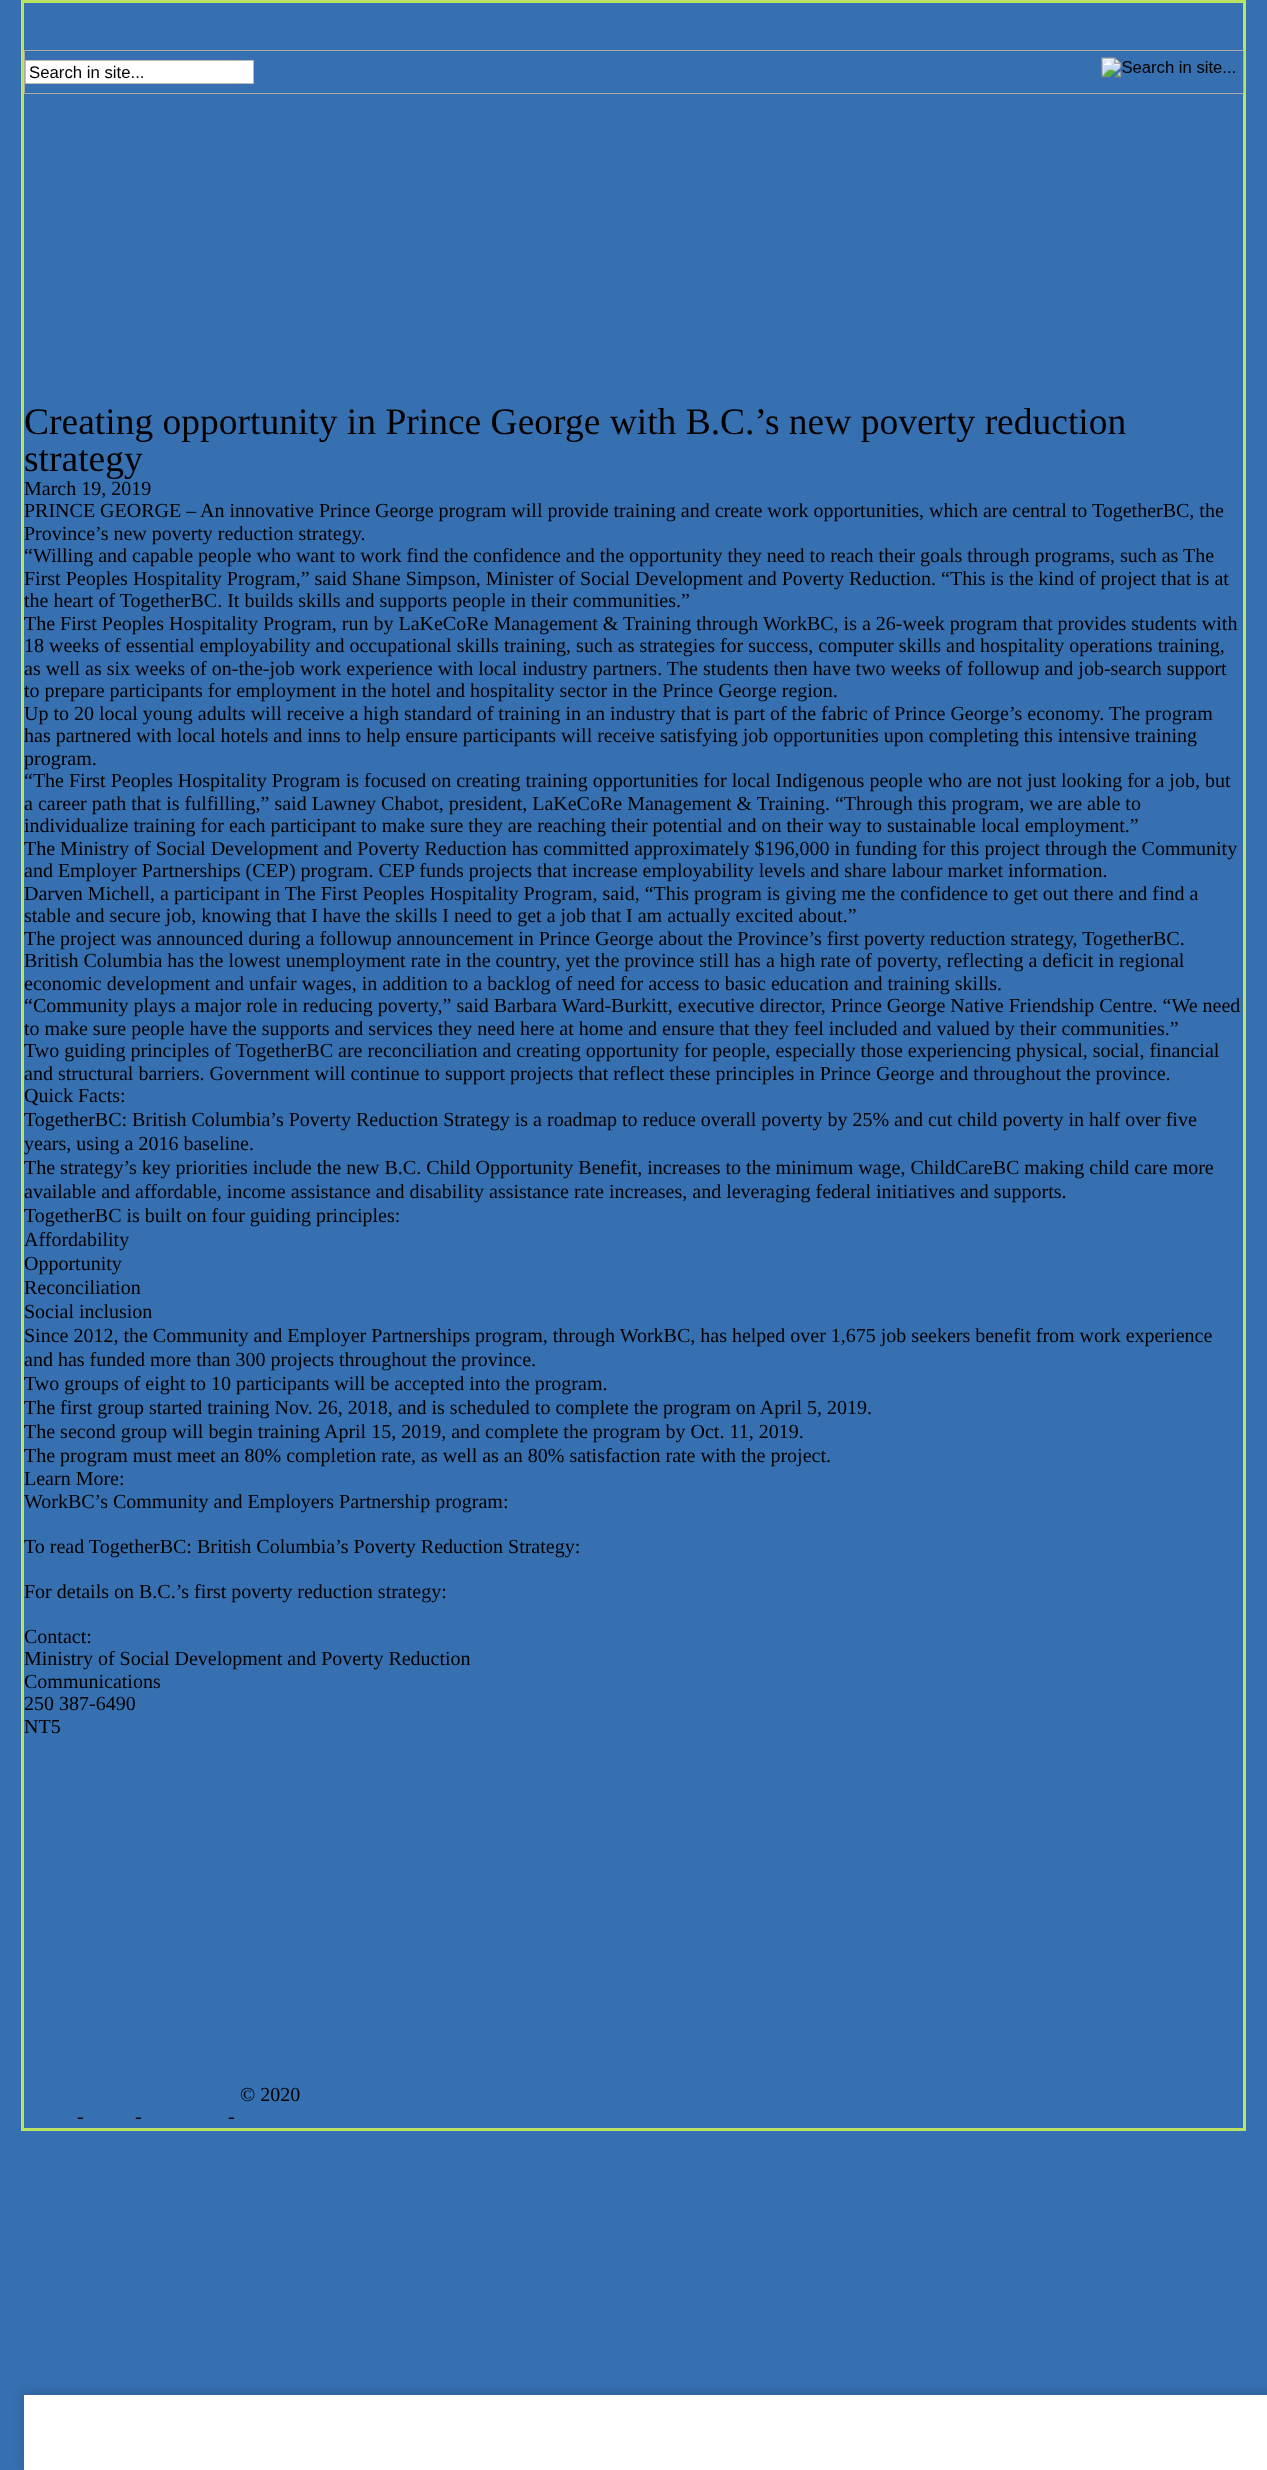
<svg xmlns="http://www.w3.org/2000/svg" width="1267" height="2470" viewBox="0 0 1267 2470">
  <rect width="100%" height="100%" fill="#3670b1"/>
  <path d="M22.5 1.5h1222v2128H22.5z" fill="none" stroke="#bbe465" stroke-width="3"/>
  <path d="M24.5 50.5h1219v43H24.5z" fill="none" stroke="#aaa"/>
  <path d="M25.5 60.5h228v23H25.5z" fill="#fff" stroke="#bbb"/>
  <image x="1101" y="57" width="134" height="21" href="img/1.png"/>
  <path d="M24 2394h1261v75H24z" fill="#00000033" filter="blur(6px)"/>
  <path d="M24 2395h1243v75H24z" fill="#fff"/>
  <text x="29" y="78" font-family="Liberation Sans" font-size="16.75" fill="#000">Search in site...</text>
  <g font-family="Liberation Serif" font-size="37.5" fill="#000">
    <text x="24" y="434">Creating opportunity in Prince George with B.C.’s new poverty reduction</text>
    <text x="24" y="471">strategy</text>
  </g>
  <g font-family="Liberation Serif" font-size="20" fill="#000">
    <text x="24" y="495">March 19, 2019</text>
    <text x="24" y="517">PRINCE GEORGE – An innovative Prince George program will provide training and create work opportunities, which are central to TogetherBC, the</text>
    <text x="24" y="540">Province’s new poverty reduction strategy.</text>
    <text x="24" y="562">“Willing and capable people who want to work find the confidence and the opportunity they need to reach their goals through programs, such as The</text>
    <text x="24" y="585">First Peoples Hospitality Program,” said Shane Simpson, Minister of Social Development and Poverty Reduction. “This is the kind of project that is at</text>
    <text x="24" y="607">the heart of TogetherBC. It builds skills and supports people in their communities.”</text>
    <text x="24" y="630">The First Peoples Hospitality Program, run by LaKeCoRe Management &amp; Training through WorkBC, is a 26-week program that provides students with</text>
    <text x="24" y="652">18 weeks of essential employability and occupational skills training, such as strategies for success, computer skills and hospitality operations training,</text>
    <text x="24" y="675">as well as six weeks of on-the-job work experience with local industry partners. The students then have two weeks of followup and job-search support</text>
    <text x="24" y="697">to prepare participants for employment in the hotel and hospitality sector in the Prince George region.</text>
    <text x="24" y="720">Up to 20 local young adults will receive a high standard of training in an industry that is part of the fabric of Prince George’s economy. The program</text>
    <text x="24" y="742">has partnered with local hotels and inns to help ensure participants will receive satisfying job opportunities upon completing this intensive training</text>
    <text x="24" y="765">program.</text>
    <text x="24" y="787">“The First Peoples Hospitality Program is focused on creating training opportunities for local Indigenous people who are not just looking for a job, but</text>
    <text x="24" y="810">a career path that is fulfilling,” said Lawney Chabot, president, LaKeCoRe Management &amp; Training. “Through this program, we are able to</text>
    <text x="24" y="832">individualize training for each participant to make sure they are reaching their potential and on their way to sustainable local employment.”</text>
    <text x="24" y="855">The Ministry of Social Development and Poverty Reduction has committed approximately $196,000 in funding for this project through the Community</text>
    <text x="24" y="877">and Employer Partnerships (CEP) program. CEP funds projects that increase employability levels and share labour market information.</text>
    <text x="24" y="900">Darven Michell, a participant in The First Peoples Hospitality Program, said, “This program is giving me the confidence to get out there and find a</text>
    <text x="24" y="922">stable and secure job, knowing that I have the skills I need to get a job that I am actually excited about.”</text>
    <text x="24" y="945">The project was announced during a followup announcement in Prince George about the Province’s first poverty reduction strategy, TogetherBC.</text>
    <text x="24" y="967">British Columbia has the lowest unemployment rate in the country, yet the province still has a high rate of poverty, reflecting a deficit in regional</text>
    <text x="24" y="990">economic development and unfair wages, in addition to a backlog of need for access to basic education and training skills.</text>
    <text x="24" y="1012">“Community plays a major role in reducing poverty,” said Barbara Ward-Burkitt, executive director, Prince George Native Friendship Centre. “We need</text>
    <text x="24" y="1035">to make sure people have the supports and services they need here at home and ensure that they feel included and valued by their communities.”</text>
    <text x="24" y="1057">Two guiding principles of TogetherBC are reconciliation and creating opportunity for people, especially those experiencing physical, social, financial</text>
    <text x="24" y="1080">and structural barriers. Government will continue to support projects that reflect these principles in Prince George and throughout the province.</text>
    <text x="24" y="1102">Quick Facts:</text>
    <text x="24" y="1126">TogetherBC: British Columbia’s Poverty Reduction Strategy is a roadmap to reduce overall poverty by 25% and cut child poverty in half over five</text>
    <text x="24" y="1150">years, using a 2016 baseline.</text>
    <text x="24" y="1174">The strategy’s key priorities include the new B.C. Child Opportunity Benefit, increases to the minimum wage, ChildCareBC making child care more</text>
    <text x="24" y="1198">available and affordable, income assistance and disability assistance rate increases, and leveraging federal initiatives and supports.</text>
    <text x="24" y="1222">TogetherBC is built on four guiding principles:</text>
    <text x="24" y="1246">Affordability</text>
    <text x="24" y="1270">Opportunity</text>
    <text x="24" y="1294">Reconciliation</text>
    <text x="24" y="1318">Social inclusion</text>
    <text x="24" y="1342">Since 2012, the Community and Employer Partnerships program, through WorkBC, has helped over 1,675 job seekers benefit from work experience</text>
    <text x="24" y="1366">and has funded more than 300 projects throughout the province.</text>
    <text x="24" y="1390">Two groups of eight to 10 participants will be accepted into the program.</text>
    <text x="24" y="1414">The first group started training Nov. 26, 2018, and is scheduled to complete the program on April 5, 2019.</text>
    <text x="24" y="1438">The second group will begin training April 15, 2019, and complete the program by Oct. 11, 2019.</text>
    <text x="24" y="1462">The program must meet an 80% completion rate, as well as an 80% satisfaction rate with the project.</text>
    <text x="24" y="1485">Learn More:</text>
    <text x="24" y="1508">WorkBC’s Community and Employers Partnership program:</text>
    <text x="24" y="1553">To read TogetherBC: British Columbia’s Poverty Reduction Strategy:</text>
    <text x="24" y="1598">For details on B.C.’s first poverty reduction strategy:</text>
    <text x="24" y="1643">Contact:</text>
    <text x="24" y="1665">Ministry of Social Development and Poverty Reduction</text>
    <text x="24" y="1688">Communications</text>
    <text x="24" y="1710">250 387-6490</text>
    <text x="24" y="1733">NT5</text>
    <text x="240" y="2101">© 2020</text>
    <text x="77" y="2123">-</text>
    <text x="135" y="2123">-</text>
    <text x="228" y="2123">-</text>
  </g>
</svg>
